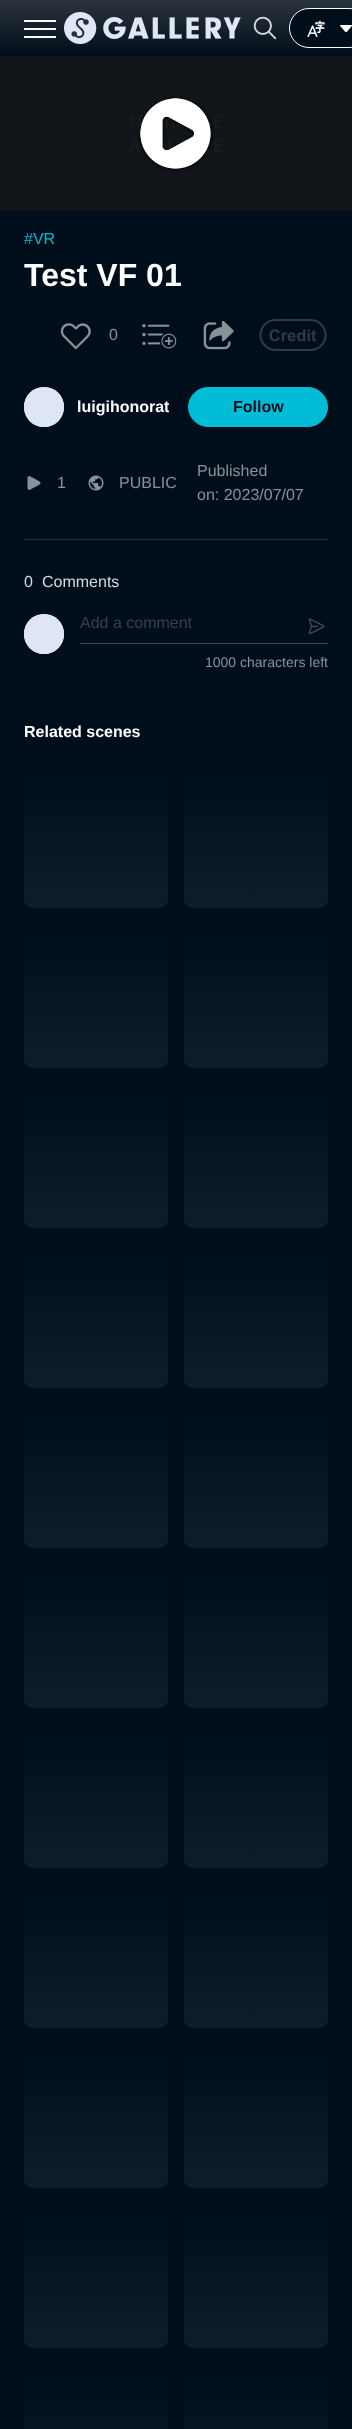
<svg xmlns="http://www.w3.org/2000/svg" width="352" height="2429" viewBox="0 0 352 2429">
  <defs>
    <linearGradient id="g1" gradientUnits="userSpaceOnUse" x1="176" y1="0" x2="176" y2="56"><stop offset="0" stop-color="#2b343d"/><stop offset="1" stop-color="#000d1a"/></linearGradient>
    <linearGradient id="g2" gradientUnits="userSpaceOnUse" x1="96" y1="908" x2="96" y2="764"><stop offset="0" stop-color="#0f1c29"/><stop offset="1" stop-color="#000d1a"/></linearGradient>
    <linearGradient id="g3" gradientUnits="userSpaceOnUse" x1="256" y1="908" x2="256" y2="764"><stop offset="0" stop-color="#0f1c29"/><stop offset="1" stop-color="#000d1a"/></linearGradient>
    <linearGradient id="g4" gradientUnits="userSpaceOnUse" x1="96" y1="1068" x2="96" y2="924"><stop offset="0" stop-color="#0f1c29"/><stop offset="1" stop-color="#000d1a"/></linearGradient>
    <linearGradient id="g5" gradientUnits="userSpaceOnUse" x1="256" y1="1068" x2="256" y2="924"><stop offset="0" stop-color="#0f1c29"/><stop offset="1" stop-color="#000d1a"/></linearGradient>
    <linearGradient id="g6" gradientUnits="userSpaceOnUse" x1="96" y1="1228" x2="96" y2="1084"><stop offset="0" stop-color="#0f1c29"/><stop offset="1" stop-color="#000d1a"/></linearGradient>
    <linearGradient id="g7" gradientUnits="userSpaceOnUse" x1="256" y1="1228" x2="256" y2="1084"><stop offset="0" stop-color="#0f1c29"/><stop offset="1" stop-color="#000d1a"/></linearGradient>
    <linearGradient id="g8" gradientUnits="userSpaceOnUse" x1="96" y1="1388" x2="96" y2="1244"><stop offset="0" stop-color="#0f1c29"/><stop offset="1" stop-color="#000d1a"/></linearGradient>
    <linearGradient id="g9" gradientUnits="userSpaceOnUse" x1="256" y1="1388" x2="256" y2="1244"><stop offset="0" stop-color="#0f1c29"/><stop offset="1" stop-color="#000d1a"/></linearGradient>
    <linearGradient id="g10" gradientUnits="userSpaceOnUse" x1="96" y1="1548" x2="96" y2="1404"><stop offset="0" stop-color="#0f1c29"/><stop offset="1" stop-color="#000d1a"/></linearGradient>
    <linearGradient id="g11" gradientUnits="userSpaceOnUse" x1="256" y1="1548" x2="256" y2="1404"><stop offset="0" stop-color="#0f1c29"/><stop offset="1" stop-color="#000d1a"/></linearGradient>
    <linearGradient id="g12" gradientUnits="userSpaceOnUse" x1="96" y1="1708" x2="96" y2="1564"><stop offset="0" stop-color="#0f1c29"/><stop offset="1" stop-color="#000d1a"/></linearGradient>
    <linearGradient id="g13" gradientUnits="userSpaceOnUse" x1="256" y1="1708" x2="256" y2="1564"><stop offset="0" stop-color="#0f1c29"/><stop offset="1" stop-color="#000d1a"/></linearGradient>
    <linearGradient id="g14" gradientUnits="userSpaceOnUse" x1="96" y1="1868" x2="96" y2="1724"><stop offset="0" stop-color="#0f1c29"/><stop offset="1" stop-color="#000d1a"/></linearGradient>
    <linearGradient id="g15" gradientUnits="userSpaceOnUse" x1="256" y1="1868" x2="256" y2="1724"><stop offset="0" stop-color="#0f1c29"/><stop offset="1" stop-color="#000d1a"/></linearGradient>
    <linearGradient id="g16" gradientUnits="userSpaceOnUse" x1="96" y1="2028" x2="96" y2="1884"><stop offset="0" stop-color="#0f1c29"/><stop offset="1" stop-color="#000d1a"/></linearGradient>
    <linearGradient id="g17" gradientUnits="userSpaceOnUse" x1="256" y1="2028" x2="256" y2="1884"><stop offset="0" stop-color="#0f1c29"/><stop offset="1" stop-color="#000d1a"/></linearGradient>
    <linearGradient id="g18" gradientUnits="userSpaceOnUse" x1="96" y1="2188" x2="96" y2="2044"><stop offset="0" stop-color="#0f1c29"/><stop offset="1" stop-color="#000d1a"/></linearGradient>
    <linearGradient id="g19" gradientUnits="userSpaceOnUse" x1="256" y1="2188" x2="256" y2="2044"><stop offset="0" stop-color="#0f1c29"/><stop offset="1" stop-color="#000d1a"/></linearGradient>
    <linearGradient id="g20" gradientUnits="userSpaceOnUse" x1="96" y1="2348" x2="96" y2="2204"><stop offset="0" stop-color="#0f1c29"/><stop offset="1" stop-color="#000d1a"/></linearGradient>
    <linearGradient id="g21" gradientUnits="userSpaceOnUse" x1="256" y1="2348" x2="256" y2="2204"><stop offset="0" stop-color="#0f1c29"/><stop offset="1" stop-color="#000d1a"/></linearGradient>
    <linearGradient id="g22" gradientUnits="userSpaceOnUse" x1="96" y1="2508" x2="96" y2="2364"><stop offset="0" stop-color="#0f1c29"/><stop offset="1" stop-color="#000d1a"/></linearGradient>
    <linearGradient id="g23" gradientUnits="userSpaceOnUse" x1="256" y1="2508" x2="256" y2="2364"><stop offset="0" stop-color="#0f1c29"/><stop offset="1" stop-color="#000d1a"/></linearGradient>
    <clipPath id="clip1"><path d="M77 395h92v24H77z"/></clipPath>
  </defs>
  <rect width="100%" height="100%" fill="#000d1a"/>
  <path d="M0 0h352v53H0z" fill="url(#g1)"/>
  <path d="M24 20h32v2H24z" fill="#fff"/>
  <path d="M24 28h32v2H24z" fill="#fff"/>
  <path d="M24 36h32v2H24z" fill="#fff"/>
  <image x="64" y="12" width="177" height="32" href="img/1.png"/>
  <image x="253" y="16" width="24" height="24" href="img/2.png"/>
  <rect x="289.5" y="8.5" width="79" height="39" rx="19.5" fill="#000d1a" stroke="#fcfeff"/>
  <image x="307" y="20" width="18" height="18" href="img/3.png"/>
  <image x="340" y="25" width="12" height="8" href="img/4.png"/>
  <image x="0" y="56" width="352" height="155" href="img/5.png"/>
  <image x="60" y="323" width="31" height="27" href="img/6.png"/>
  <image x="142" y="324" width="35" height="25" href="img/7.png"/>
  <image x="203" y="320" width="31" height="30" href="img/8.png"/>
  <image x="259" y="319" width="68" height="32" href="img/9.png"/>
  <circle cx="44" cy="407" r="20" fill="#fff"/>
  <image x="24" y="387" width="40" height="40" href="img/10.png"/>
  <rect x="188.5" y="387.5" width="139" height="39" rx="19.5" fill="#00bcd4" stroke="#00bcd4"/>
  <image x="27" y="476" width="14" height="14" href="img/11.png"/>
  <image x="88" y="475" width="16" height="16" href="img/12.png"/>
  <path d="M24 539h304v1H24z" fill="#1f2b38"/>
  <circle cx="44" cy="634" r="20" fill="#fff"/>
  <image x="24" y="614" width="40" height="40" href="img/13.png"/>
  <path d="M80 643h248v1H80z" fill="#3d4955"/>
  <image x="308" y="618" width="17" height="17" href="img/14.png"/>
  <rect x="24" y="764" width="144" height="144" rx="8" fill="url(#g2)"/>
  <rect x="184" y="764" width="144" height="144" rx="8" fill="url(#g3)"/>
  <rect x="24" y="924" width="144" height="144" rx="8" fill="url(#g4)"/>
  <rect x="184" y="924" width="144" height="144" rx="8" fill="url(#g5)"/>
  <rect x="24" y="1084" width="144" height="144" rx="8" fill="url(#g6)"/>
  <rect x="184" y="1084" width="144" height="144" rx="8" fill="url(#g7)"/>
  <rect x="24" y="1244" width="144" height="144" rx="8" fill="url(#g8)"/>
  <rect x="184" y="1244" width="144" height="144" rx="8" fill="url(#g9)"/>
  <rect x="24" y="1404" width="144" height="144" rx="8" fill="url(#g10)"/>
  <rect x="184" y="1404" width="144" height="144" rx="8" fill="url(#g11)"/>
  <rect x="24" y="1564" width="144" height="144" rx="8" fill="url(#g12)"/>
  <rect x="184" y="1564" width="144" height="144" rx="8" fill="url(#g13)"/>
  <rect x="24" y="1724" width="144" height="144" rx="8" fill="url(#g14)"/>
  <rect x="184" y="1724" width="144" height="144" rx="8" fill="url(#g15)"/>
  <rect x="24" y="1884" width="144" height="144" rx="8" fill="url(#g16)"/>
  <rect x="184" y="1884" width="144" height="144" rx="8" fill="url(#g17)"/>
  <rect x="24" y="2044" width="144" height="144" rx="8" fill="url(#g18)"/>
  <rect x="184" y="2044" width="144" height="144" rx="8" fill="url(#g19)"/>
  <rect x="24" y="2204" width="144" height="144" rx="8" fill="url(#g20)"/>
  <rect x="184" y="2204" width="144" height="144" rx="8" fill="url(#g21)"/>
  <rect x="24" y="2364" width="144" height="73" rx="8" fill="url(#g22)"/>
  <rect x="184" y="2364" width="144" height="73" rx="8" fill="url(#g23)"/>
  <text x="24" y="244" font-family="Liberation Sans" font-size="16" fill="#00bcd4">#VR</text>
  <text x="24" y="286" font-family="Liberation Sans" font-size="32" font-weight="bold" fill="#fcfeff">Test VF 01</text>
  <text x="109" y="340" font-family="Liberation Sans" font-size="16" fill="#899199">0</text>
  <g clip-path="url(#clip1)">
    <text x="77" y="412" font-family="Liberation Sans" font-size="16" font-weight="bold" fill="#fcfeff">luigihonorat</text>
  </g>
  <text x="233" y="412" font-family="Liberation Sans" font-size="16" font-weight="bold" fill="#000d1a">Follow</text>
  <g font-family="Liberation Sans" font-size="16" fill="#899199">
    <text x="57" y="488">1</text>
    <text x="119" y="488">PUBLIC</text>
    <text x="197" y="476">Published</text>
    <text x="197" y="500">on: 2023/07/07</text>
  </g>
  <g font-family="Liberation Sans" font-size="16" fill="#d6dadd">
    <text x="24" y="587">0</text>
    <text x="42" y="587">Comments</text>
  </g>
  <text x="80" y="628" font-family="Liberation Sans" font-size="16" fill="#35414c">Add a comment</text>
  <text x="205" y="667" font-family="Liberation Sans" font-size="14" fill="#899199">1000 characters left</text>
  <text x="24" y="737" font-family="Liberation Sans" font-size="16" font-weight="bold" fill="#fcfeff">Related scenes</text>
</svg>
